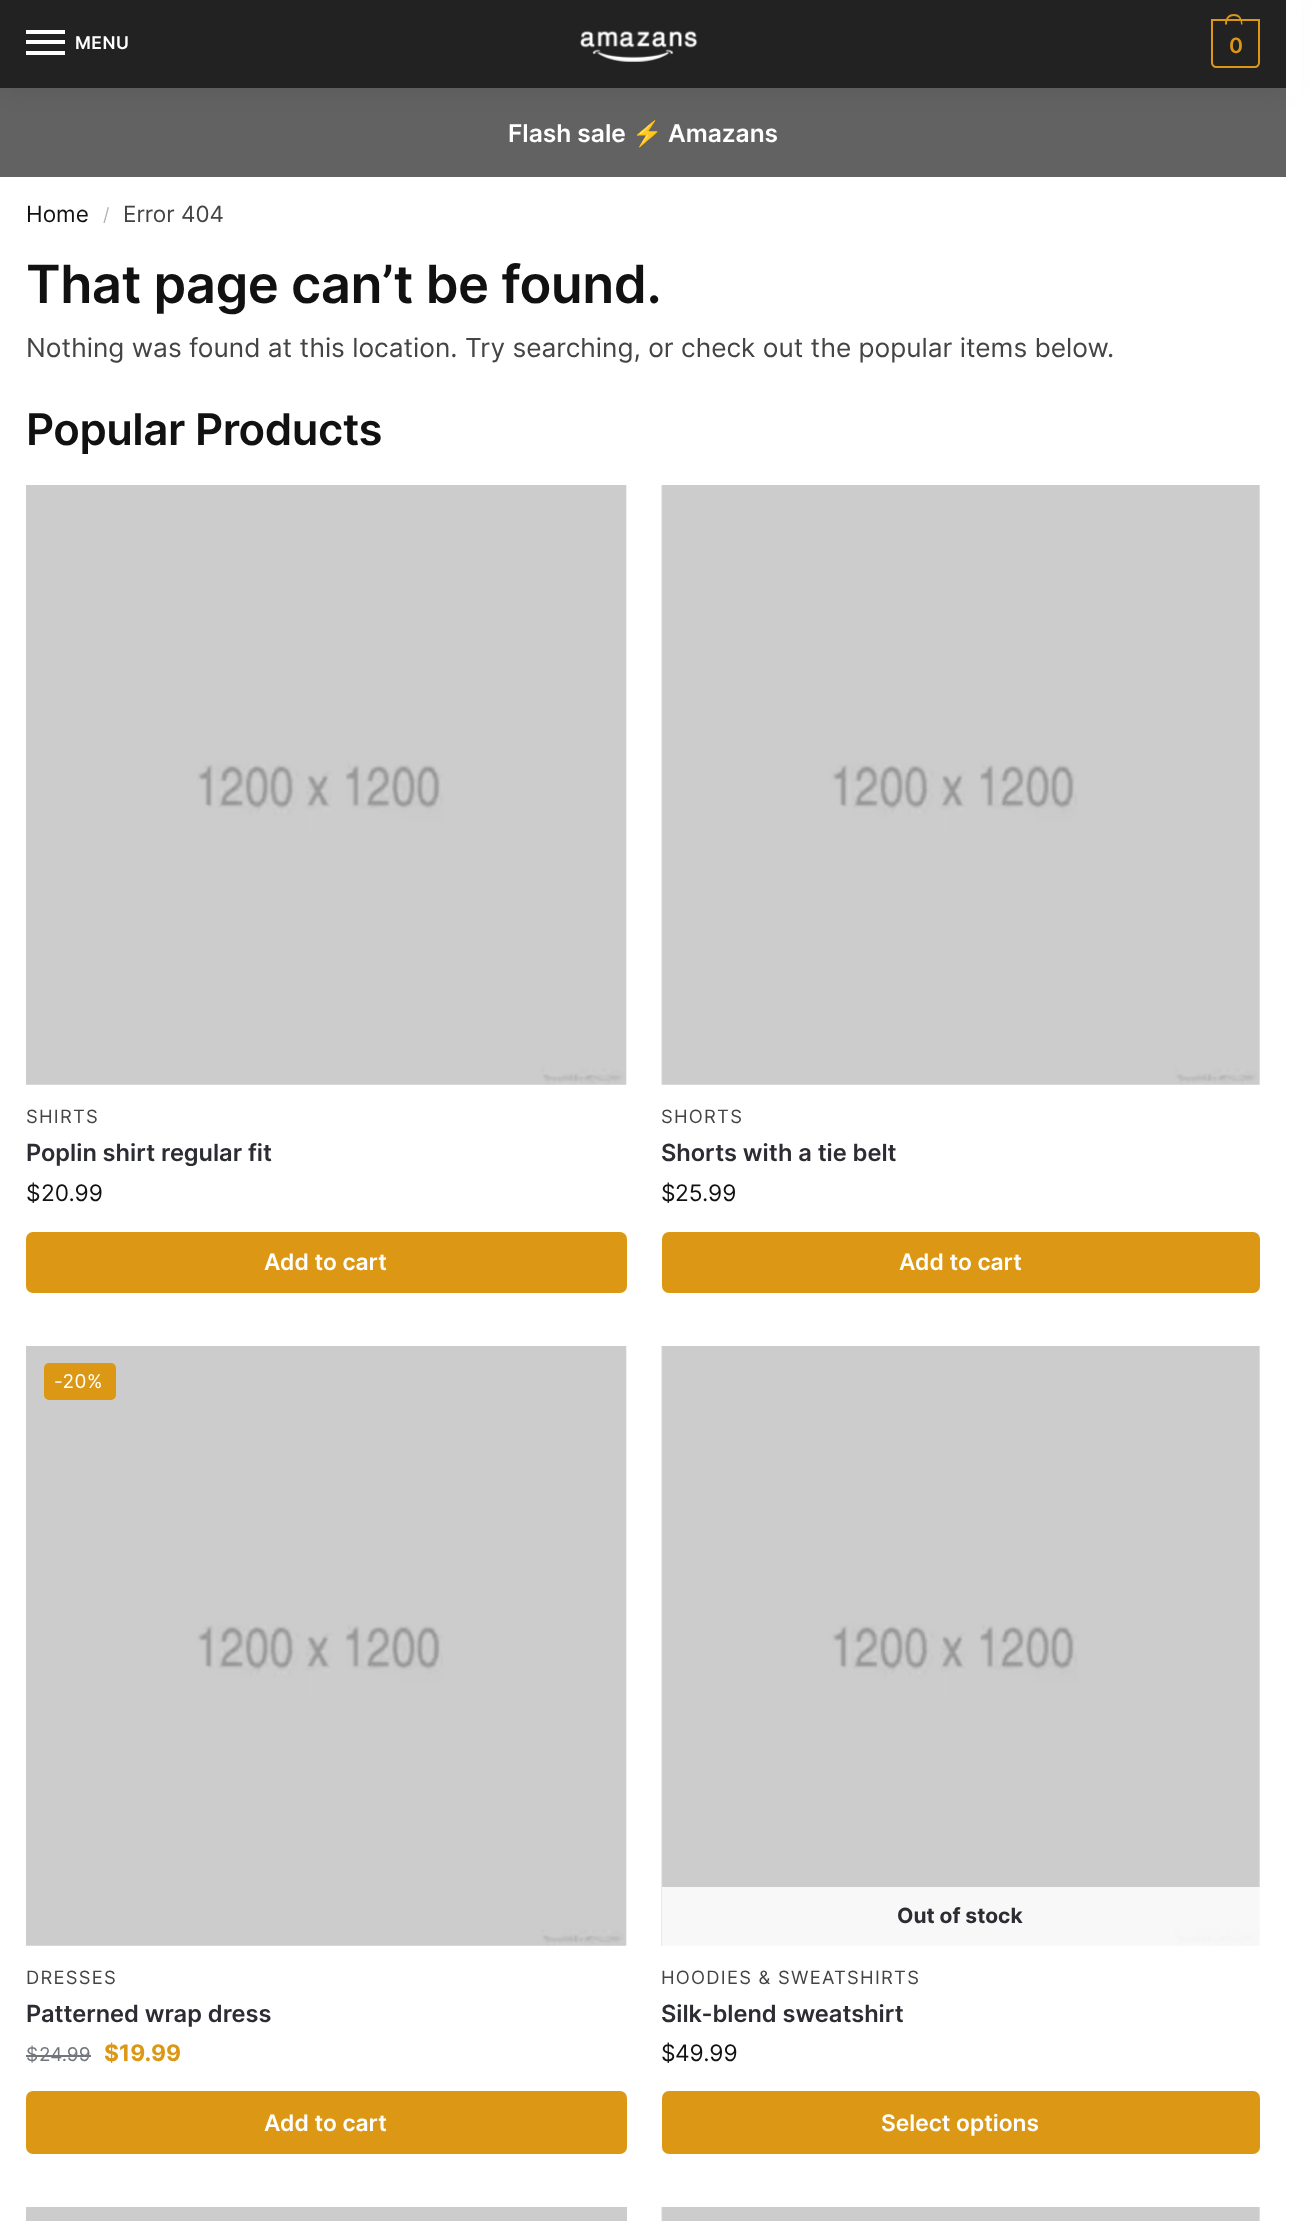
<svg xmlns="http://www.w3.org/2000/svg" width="1312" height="2221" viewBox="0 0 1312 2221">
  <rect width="100%" height="100%" fill="#fff"/>
  <path d="M0 88h1286v89H0z" fill="#626262"/>
  <path d="M0 2h1286v87H0z" fill="#00000014" filter="blur(13px)"/>
  <path d="M0 0h1286v88H0z" fill="#222"/>
  <path d="M26 30h39v4H26z" fill="#fff"/>
  <path d="M26 40h39v4H26z" fill="#fff"/>
  <path d="M26 51h39v4H26z" fill="#fff"/>
  <image x="580" y="30" width="118" height="32" href="img/1.png"/>
  <path d="M1212 20H1259V63C1259 65 1257 67 1255 67H1216C1214 67 1212 65 1212 63Z" fill="none" stroke="#dc9814" stroke-width="2"/>
  <path d="M1234 14C1240 14 1242.5 19 1242.5 24.5H1225C1225 19 1227.5 14 1234 14ZM1234 16C1239 16 1241 20 1241 24.5H1227C1227 20 1228.5 16 1234 16Z" fill="#dc9814" fill-rule="evenodd"/>
  <path d="M1286 0h15v97H1286z" fill="#fff"/>
  <image x="26" y="485" width="601" height="600" href="img/2.png"/>
  <rect x="26" y="1232" width="601" height="61" rx="7" fill="#dc9814"/>
  <image x="661" y="485" width="599" height="600" href="img/3.png"/>
  <rect x="662" y="1232" width="598" height="61" rx="7" fill="#dc9814"/>
  <image x="26" y="1346" width="601" height="600" href="img/2.png"/>
  <rect x="44" y="1363" width="72" height="37" rx="5" fill="#dc9814"/>
  <path d="M26 2055h13v2H26z" fill="#72767c"/>
  <path d="M39 2055h52v2H39z" fill="#72767c"/>
  <rect x="26" y="2091" width="601" height="63" rx="7" fill="#dc9814"/>
  <image x="661" y="1346" width="599" height="600" href="img/3.png"/>
  <path d="M662 1887h598v59H662z" fill="#ffffffd9"/>
  <rect x="662" y="2091" width="598" height="63" rx="7" fill="#dc9814"/>
  <path d="M26 2207h601v14H26z" fill="#ccc"/>
  <image x="661" y="2207" width="599" height="14" href="img/4.png"/>
  <text x="75" y="49" font-family="Inter" font-size="17.5" font-weight="600" letter-spacing="0.5" fill="#fff">MENU</text>
  <text x="1229" y="53" font-family="Inter" font-size="21" font-weight="600" letter-spacing="-1" fill="#dc9814">0</text>
  <text x="508" y="142" font-family="Inter" font-size="24.5" font-weight="600" fill="#fff">Flash sale</text>
  <text x="632" y="142" font-family="Noto Color Emoji" font-size="24.5" font-weight="bold" fill="#fff">⚡</text>
  <text x="668" y="142" font-family="Inter" font-size="24.5" font-weight="600" fill="#fff">Amazans</text>
  <text x="26" y="222" font-family="Inter" font-size="22.5" fill="#111">Home</text>
  <text x="103" y="221" font-family="Inter" font-size="18" fill="#b4b4b4">/</text>
  <text x="123" y="222" font-family="Inter" font-size="22.5" fill="#444">Error 404</text>
  <text x="26" y="303" font-family="Inter" font-size="52.5" font-weight="600" letter-spacing="-0.5" fill="#111">That page can’t be found.</text>
  <text x="26" y="357" font-family="Inter" font-size="26.25" fill="#444">Nothing was found at this location. Try searching, or check out the popular items below.</text>
  <text x="26" y="445" font-family="Inter" font-size="43.75" font-weight="600" letter-spacing="-0.5" fill="#111">Popular Products</text>
  <text x="26" y="1123" font-family="Inter" font-size="18.4" letter-spacing="1.25" fill="#444">SHIRTS</text>
  <text x="26" y="1161" font-family="Inter" font-size="23.6" font-weight="600" fill="#2c2d33">Poplin shirt regular fit</text>
  <g font-family="Inter" font-size="22.75" fill="#111">
    <text x="26" y="1201">$</text>
    <text x="41" y="1201">20.99</text>
  </g>
  <text x="264" y="1270" font-family="Inter" font-size="22.75" font-weight="600" fill="#fff">Add to cart</text>
  <text x="661" y="1123" font-family="Inter" font-size="18.4" letter-spacing="1.25" fill="#444">SHORTS</text>
  <text x="661" y="1161" font-family="Inter" font-size="23.6" font-weight="600" fill="#2c2d33">Shorts with a tie belt</text>
  <g font-family="Inter" font-size="22.75" fill="#111">
    <text x="661" y="1201">$</text>
    <text x="675" y="1201">25.99</text>
  </g>
  <text x="899" y="1270" font-family="Inter" font-size="22.75" font-weight="600" fill="#fff">Add to cart</text>
  <text x="54" y="1388" font-family="Inter" font-size="19" letter-spacing="0.5" fill="#fff">-20%</text>
  <text x="26" y="1984" font-family="Inter" font-size="18.4" letter-spacing="1.25" fill="#444">DRESSES</text>
  <text x="26" y="2022" font-family="Inter" font-size="23.6" font-weight="600" fill="#2c2d33">Patterned wrap dress</text>
  <g font-family="Inter" font-size="19" fill="#72767c">
    <text x="26" y="2061">$</text>
    <text x="39" y="2061">24.99</text>
  </g>
  <g font-family="Inter" font-size="22.75" font-weight="bold" fill="#dc9814">
    <text x="104" y="2061">$</text>
    <text x="119" y="2061">19.99</text>
  </g>
  <text x="264" y="2131" font-family="Inter" font-size="22.75" font-weight="600" fill="#fff">Add to cart</text>
  <text x="897" y="1923" font-family="Inter" font-size="21" font-weight="bold" fill="#2c2d33">Out of stock</text>
  <text x="661" y="1984" font-family="Inter" font-size="18.4" letter-spacing="1.25" fill="#444">HOODIES &amp; SWEATSHIRTS</text>
  <text x="661" y="2022" font-family="Inter" font-size="23.6" font-weight="600" fill="#2c2d33">Silk-blend sweatshirt</text>
  <g font-family="Inter" font-size="22.75" fill="#111">
    <text x="661" y="2061">$</text>
    <text x="675" y="2061">49.99</text>
  </g>
  <text x="881" y="2131" font-family="Inter" font-size="22.75" font-weight="600" fill="#fff">Select options</text>
</svg>
